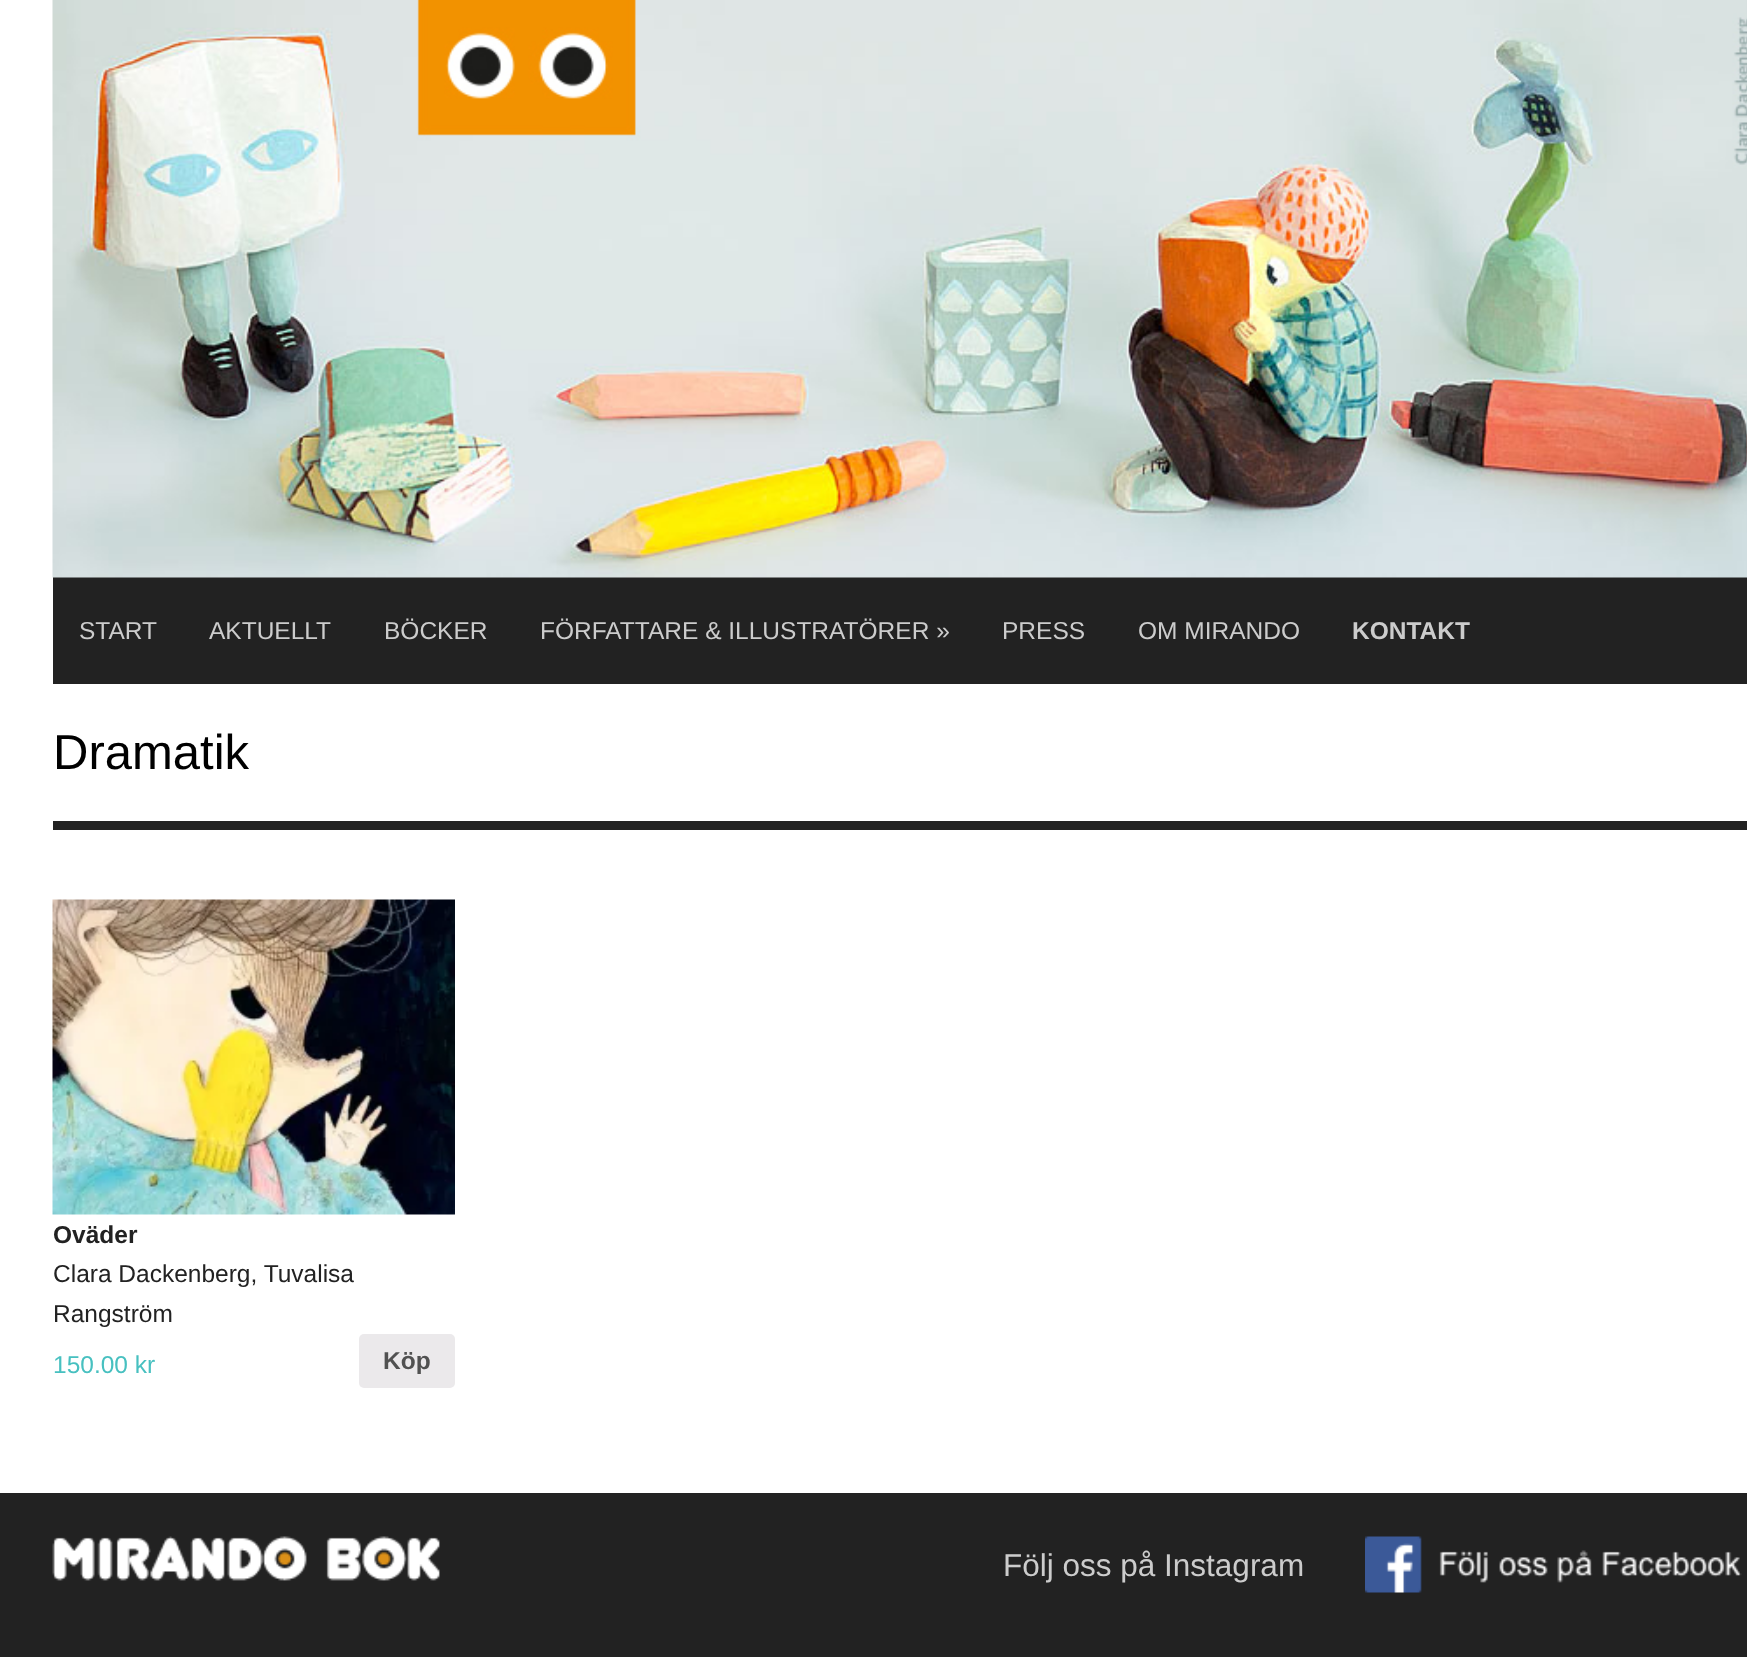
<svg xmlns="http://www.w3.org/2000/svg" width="1747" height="1657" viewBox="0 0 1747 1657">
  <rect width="100%" height="100%" fill="#fff"/>
  <path d="M53 577h1694v107H53z" fill="#222"/>
  <image x="52" y="0" width="1695" height="578" href="img/1.png"/>
  <path d="M53 821h1694v9H53z" fill="#222"/>
  <image x="52" y="899" width="403" height="316" href="img/2.png"/>
  <rect x="359" y="1334" width="96" height="54" rx="5" fill="#ebe9eb"/>
  <path d="M0 1493h1747v164H0z" fill="#222"/>
  <image x="52" y="1536" width="388" height="45" href="img/3.png"/>
  <image x="1365" y="1536" width="377" height="57" href="img/4.png"/>
  <g font-family="Liberation Sans" font-size="24.5" fill="#ccc">
    <text x="79" y="639">START</text>
    <text x="209" y="639">AKTUELLT</text>
    <text x="384" y="639">BÖCKER</text>
    <text x="540" y="639">FÖRFATTARE &amp; ILLUSTRATÖRER »</text>
    <text x="1002" y="639">PRESS</text>
    <text x="1138" y="639">OM MIRANDO</text>
  </g>
  <text x="1352" y="639" font-family="Liberation Sans" font-size="24.5" font-weight="bold" fill="#ccc">KONTAKT</text>
  <text x="53" y="769" font-family="Liberation Sans" font-size="49" fill="#000">Dramatik</text>
  <text x="53" y="1243" font-family="Liberation Sans" font-size="24.5" font-weight="bold" fill="#222">Oväder</text>
  <g font-family="Liberation Sans" font-size="24.5" fill="#222">
    <text x="53" y="1282">Clara Dackenberg, Tuvalisa</text>
    <text x="53" y="1322">Rangström</text>
  </g>
  <text x="53" y="1373" font-family="Liberation Sans" font-size="24.5" fill="#47c0c0">150.00 kr</text>
  <text x="383" y="1369" font-family="Liberation Sans" font-size="24.5" font-weight="bold" fill="#515151">Köp</text>
  <text x="1003" y="1576" font-family="Liberation Sans" font-size="31.5" fill="#ccc">Följ oss på Instagram</text>
</svg>
